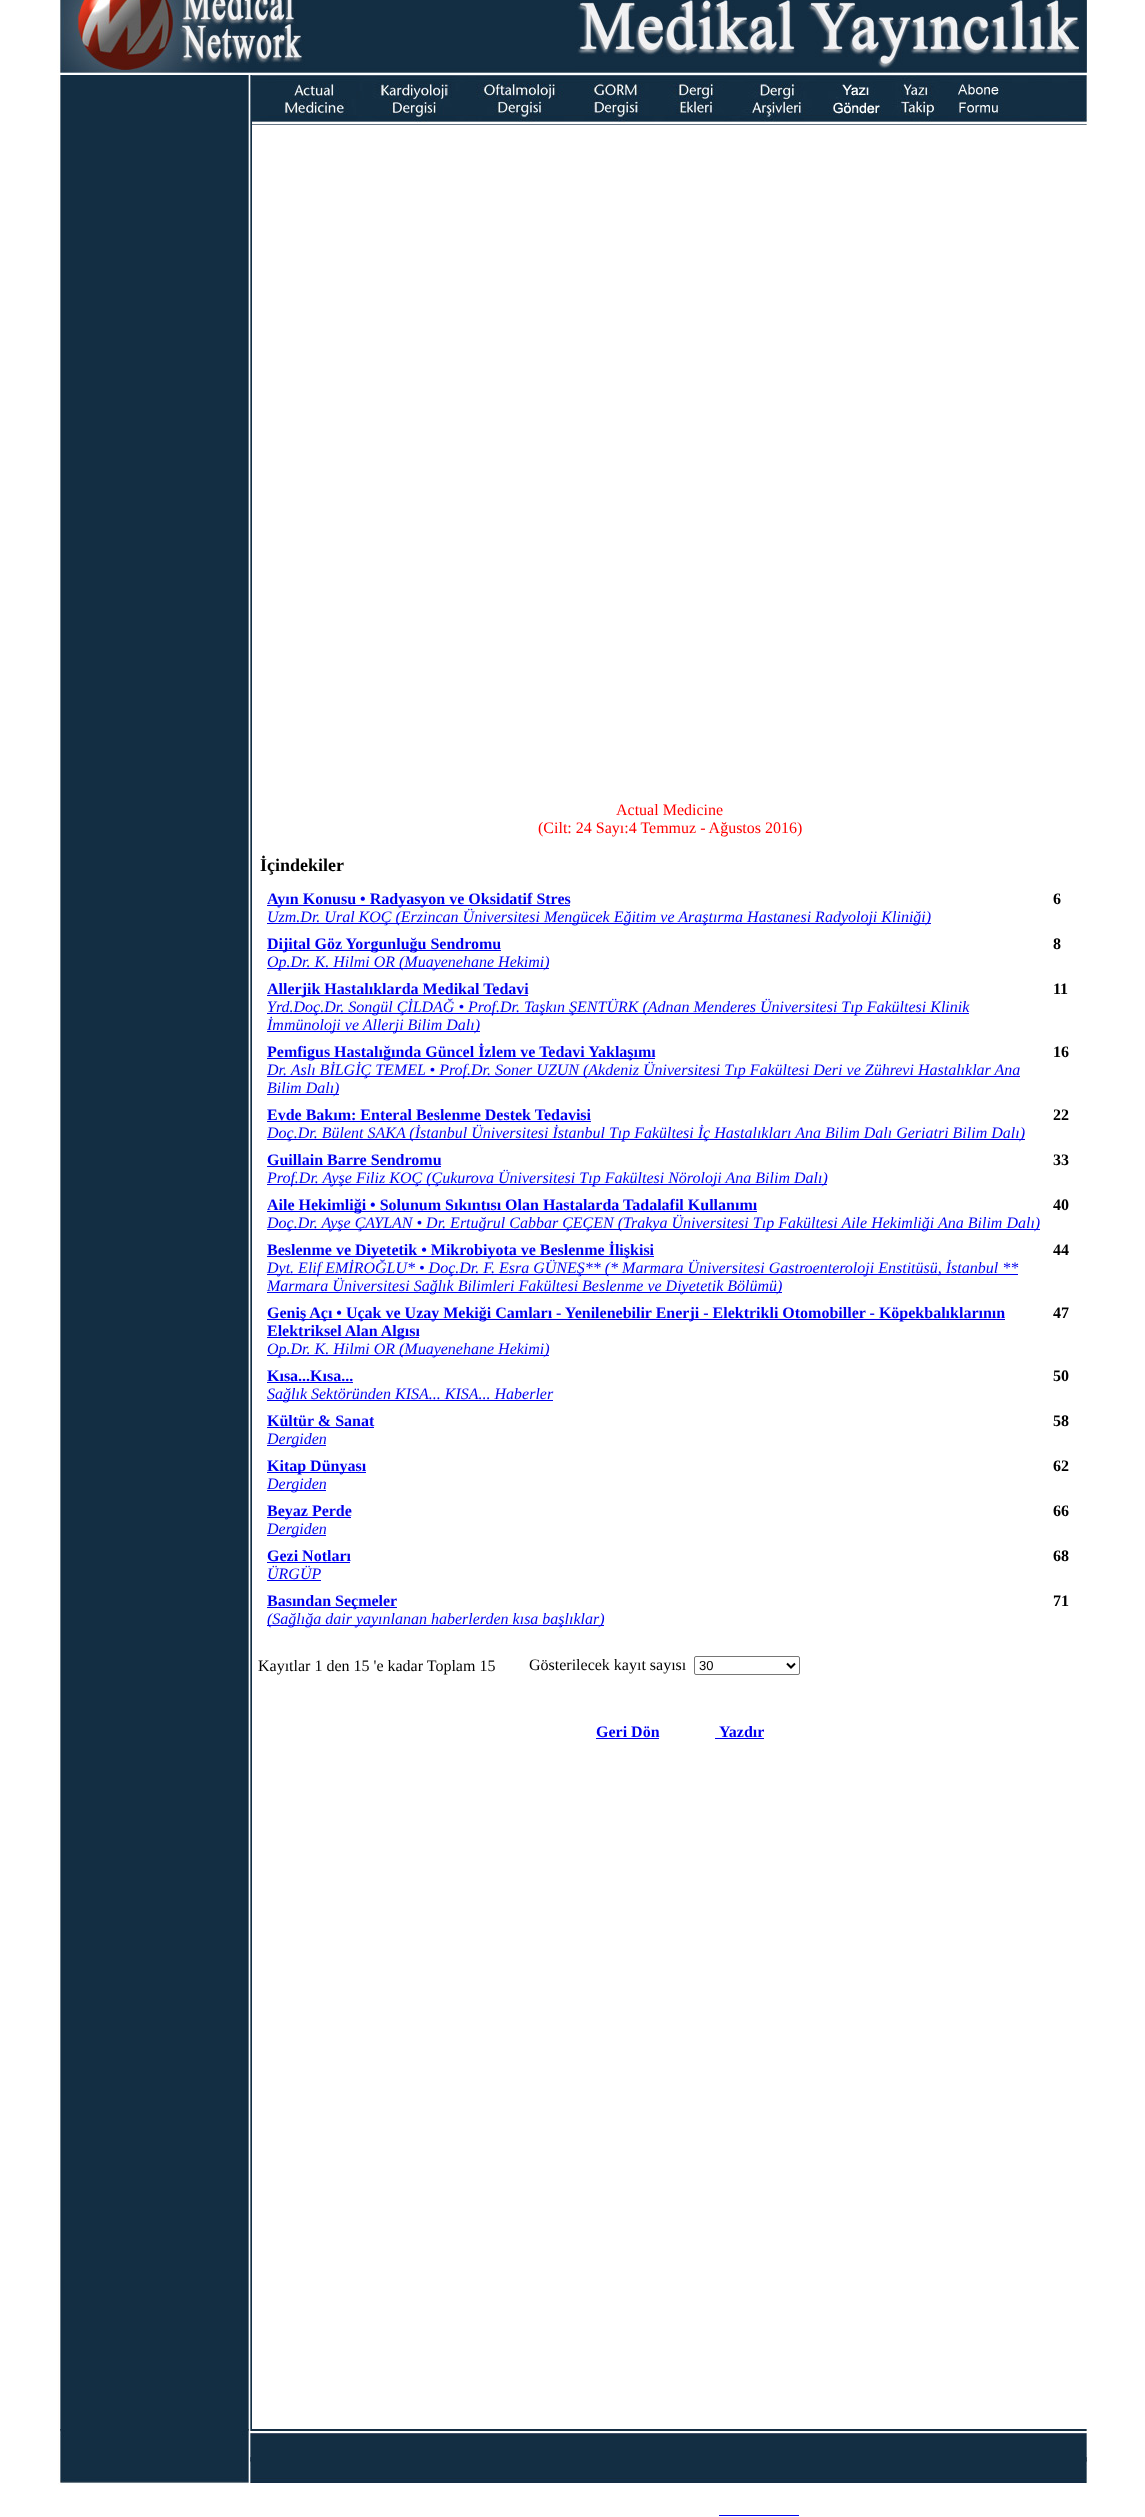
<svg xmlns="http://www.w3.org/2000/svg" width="1145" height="2517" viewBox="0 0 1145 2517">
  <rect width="100%" height="100%" fill="#fff"/>
  <image x="305" y="0" width="270" height="73" href="img/1.png"/>
  <image x="57" y="0" width="248" height="73" href="img/2.png"/>
  <image x="575" y="0" width="514" height="73" href="img/3.png"/>
  <image x="58" y="75" width="194" height="2354" href="img/4.png"/>
  <image x="58" y="2429" width="194" height="56" href="img/5.png"/>
  <image x="252" y="75" width="829" height="50" href="img/6.png"/>
  <image x="252" y="75" width="816" height="48" href="img/7.png"/>
  <image x="1081" y="75" width="8" height="50" href="img/8.png"/>
  <path d="M267 905h303v1H267z" fill="#00e"/>
  <path d="M267 923h664v1H267z" fill="#00e"/>
  <path d="M267 950h234v1H267z" fill="#00e"/>
  <path d="M267 968h282v1H267z" fill="#00e"/>
  <path d="M267 995h261v1H267z" fill="#00e"/>
  <path d="M267 1013h702v1H267z" fill="#00e"/>
  <path d="M267 1031h213v1H267z" fill="#00e"/>
  <path d="M267 1058h388v1H267z" fill="#00e"/>
  <path d="M267 1076h753v1H267z" fill="#00e"/>
  <path d="M267 1094h72v1H267z" fill="#00e"/>
  <path d="M267 1121h324v1H267z" fill="#00e"/>
  <path d="M267 1139h758v1H267z" fill="#00e"/>
  <path d="M267 1166h174v1H267z" fill="#00e"/>
  <path d="M267 1184h560v1H267z" fill="#00e"/>
  <path d="M267 1211h490v1H267z" fill="#00e"/>
  <path d="M267 1229h773v1H267z" fill="#00e"/>
  <path d="M267 1256h387v1H267z" fill="#00e"/>
  <path d="M267 1274h751v1H267z" fill="#00e"/>
  <path d="M267 1292h515v1H267z" fill="#00e"/>
  <path d="M267 1319h738v1H267z" fill="#00e"/>
  <path d="M267 1337h152v1H267z" fill="#00e"/>
  <path d="M267 1355h282v1H267z" fill="#00e"/>
  <path d="M267 1382h86v1H267z" fill="#00e"/>
  <path d="M267 1400h286v1H267z" fill="#00e"/>
  <path d="M267 1427h107v1H267z" fill="#00e"/>
  <path d="M267 1445h59v1H267z" fill="#00e"/>
  <path d="M267 1472h99v1H267z" fill="#00e"/>
  <path d="M267 1490h59v1H267z" fill="#00e"/>
  <path d="M267 1517h84v1H267z" fill="#00e"/>
  <path d="M267 1535h59v1H267z" fill="#00e"/>
  <path d="M267 1562h83v1H267z" fill="#00e"/>
  <path d="M267 1580h54v1H267z" fill="#00e"/>
  <path d="M267 1607h130v1H267z" fill="#00e"/>
  <path d="M267 1625h337v1H267z" fill="#00e"/>
  <rect x="694.5" y="1656.5" width="105" height="18" rx="1.5" fill="none" stroke="#767676"/>
  <path d="M787 1663.5L791 1667.5L795 1663.5" fill="none" stroke="#000" stroke-width="2"/>
  <path d="M596 1738h63v1H596z" fill="#00e"/>
  <path d="M715 1738h49v1H715z" fill="#00e"/>
  <image x="252" y="2429" width="833" height="54" href="img/9.png"/>
  <image x="1085" y="2429" width="4" height="56" href="img/10.png"/>
  <path d="M719 2515h80v1H719z" fill="#00e"/>
  <g font-family="Liberation Serif" font-size="16" fill="#f00">
    <text x="616" y="815">Actual Medicine</text>
    <text x="538" y="833">(Cilt: 24 Sayı:4 Temmuz - Ağustos 2016)</text>
  </g>
  <text x="260" y="871" font-family="Liberation Serif" font-size="18" font-weight="bold" fill="#000">İçindekiler</text>
  <text x="267" y="904" font-family="Liberation Serif" font-size="16" font-weight="bold" fill="#00e">Ayın Konusu • Radyasyon ve Oksidatif Stres</text>
  <text x="267" y="922" font-family="Liberation Serif" font-size="16" font-style="italic" fill="#00e">Uzm.Dr. Ural KOÇ (Erzincan Üniversitesi Mengücek Eğitim ve Araştırma Hastanesi Radyoloji Kliniği)</text>
  <text x="1053" y="904" font-family="Liberation Serif" font-size="16" font-weight="bold" fill="#000">6</text>
  <text x="267" y="949" font-family="Liberation Serif" font-size="16" font-weight="bold" fill="#00e">Dijital Göz Yorgunluğu Sendromu</text>
  <text x="267" y="967" font-family="Liberation Serif" font-size="16" font-style="italic" fill="#00e">Op.Dr. K. Hilmi OR (Muayenehane Hekimi)</text>
  <text x="1053" y="949" font-family="Liberation Serif" font-size="16" font-weight="bold" fill="#000">8</text>
  <text x="267" y="994" font-family="Liberation Serif" font-size="16" font-weight="bold" fill="#00e">Allerjik Hastalıklarda Medikal Tedavi</text>
  <g font-family="Liberation Serif" font-size="16" font-style="italic" fill="#00e">
    <text x="267" y="1012">Yrd.Doç.Dr. Songül ÇİLDAĞ • Prof.Dr. Taşkın ŞENTÜRK (Adnan Menderes Üniversitesi Tıp Fakültesi Klinik</text>
    <text x="267" y="1030">İmmünoloji ve Allerji Bilim Dalı)</text>
  </g>
  <text x="1053" y="994" font-family="Liberation Serif" font-size="16" font-weight="bold" fill="#000">11</text>
  <text x="267" y="1057" font-family="Liberation Serif" font-size="16" font-weight="bold" fill="#00e">Pemfigus Hastalığında Güncel İzlem ve Tedavi Yaklaşımı</text>
  <g font-family="Liberation Serif" font-size="16" font-style="italic" fill="#00e">
    <text x="267" y="1075">Dr. Aslı BİLGİÇ TEMEL • Prof.Dr. Soner UZUN (Akdeniz Üniversitesi Tıp Fakültesi Deri ve Zührevi Hastalıklar Ana</text>
    <text x="267" y="1093">Bilim Dalı)</text>
  </g>
  <text x="1053" y="1057" font-family="Liberation Serif" font-size="16" font-weight="bold" fill="#000">16</text>
  <text x="267" y="1120" font-family="Liberation Serif" font-size="16" font-weight="bold" fill="#00e">Evde Bakım: Enteral Beslenme Destek Tedavisi</text>
  <text x="267" y="1138" font-family="Liberation Serif" font-size="16" font-style="italic" fill="#00e">Doç.Dr. Bülent SAKA (İstanbul Üniversitesi İstanbul Tıp Fakültesi İç Hastalıkları Ana Bilim Dalı Geriatri Bilim Dalı)</text>
  <text x="1053" y="1120" font-family="Liberation Serif" font-size="16" font-weight="bold" fill="#000">22</text>
  <text x="267" y="1165" font-family="Liberation Serif" font-size="16" font-weight="bold" fill="#00e">Guillain Barre Sendromu</text>
  <text x="267" y="1183" font-family="Liberation Serif" font-size="16" font-style="italic" fill="#00e">Prof.Dr. Ayşe Filiz KOÇ (Çukurova Üniversitesi Tıp Fakültesi Nöroloji Ana Bilim Dalı)</text>
  <text x="1053" y="1165" font-family="Liberation Serif" font-size="16" font-weight="bold" fill="#000">33</text>
  <text x="267" y="1210" font-family="Liberation Serif" font-size="16" font-weight="bold" fill="#00e">Aile Hekimliği • Solunum Sıkıntısı Olan Hastalarda Tadalafil Kullanımı</text>
  <text x="267" y="1228" font-family="Liberation Serif" font-size="16" font-style="italic" fill="#00e">Doç.Dr. Ayşe ÇAYLAN • Dr. Ertuğrul Cabbar ÇEÇEN (Trakya Üniversitesi Tıp Fakültesi Aile Hekimliği Ana Bilim Dalı)</text>
  <text x="1053" y="1210" font-family="Liberation Serif" font-size="16" font-weight="bold" fill="#000">40</text>
  <text x="267" y="1255" font-family="Liberation Serif" font-size="16" font-weight="bold" fill="#00e">Beslenme ve Diyetetik • Mikrobiyota ve Beslenme İlişkisi</text>
  <g font-family="Liberation Serif" font-size="16" font-style="italic" fill="#00e">
    <text x="267" y="1273">Dyt. Elif EMİROĞLU* • Doç.Dr. F. Esra GÜNEŞ** (* Marmara Üniversitesi Gastroenteroloji Enstitüsü, İstanbul **</text>
    <text x="267" y="1291">Marmara Üniversitesi Sağlık Bilimleri Fakültesi Beslenme ve Diyetetik Bölümü)</text>
  </g>
  <text x="1053" y="1255" font-family="Liberation Serif" font-size="16" font-weight="bold" fill="#000">44</text>
  <g font-family="Liberation Serif" font-size="16" font-weight="bold" fill="#00e">
    <text x="267" y="1318">Geniş Açı • Uçak ve Uzay Mekiği Camları - Yenilenebilir Enerji - Elektrikli Otomobiller - Köpekbalıklarının</text>
    <text x="267" y="1336">Elektriksel Alan Algısı</text>
  </g>
  <text x="267" y="1354" font-family="Liberation Serif" font-size="16" font-style="italic" fill="#00e">Op.Dr. K. Hilmi OR (Muayenehane Hekimi)</text>
  <text x="1053" y="1318" font-family="Liberation Serif" font-size="16" font-weight="bold" fill="#000">47</text>
  <text x="267" y="1381" font-family="Liberation Serif" font-size="16" font-weight="bold" fill="#00e">Kısa...Kısa...</text>
  <text x="267" y="1399" font-family="Liberation Serif" font-size="16" font-style="italic" fill="#00e">Sağlık Sektöründen KISA... KISA... Haberler</text>
  <text x="1053" y="1381" font-family="Liberation Serif" font-size="16" font-weight="bold" fill="#000">50</text>
  <text x="267" y="1426" font-family="Liberation Serif" font-size="16" font-weight="bold" fill="#00e">Kültür &amp; Sanat</text>
  <text x="267" y="1444" font-family="Liberation Serif" font-size="16" font-style="italic" fill="#00e">Dergiden</text>
  <text x="1053" y="1426" font-family="Liberation Serif" font-size="16" font-weight="bold" fill="#000">58</text>
  <text x="267" y="1471" font-family="Liberation Serif" font-size="16" font-weight="bold" fill="#00e">Kitap Dünyası</text>
  <text x="267" y="1489" font-family="Liberation Serif" font-size="16" font-style="italic" fill="#00e">Dergiden</text>
  <text x="1053" y="1471" font-family="Liberation Serif" font-size="16" font-weight="bold" fill="#000">62</text>
  <text x="267" y="1516" font-family="Liberation Serif" font-size="16" font-weight="bold" fill="#00e">Beyaz Perde</text>
  <text x="267" y="1534" font-family="Liberation Serif" font-size="16" font-style="italic" fill="#00e">Dergiden</text>
  <text x="1053" y="1516" font-family="Liberation Serif" font-size="16" font-weight="bold" fill="#000">66</text>
  <text x="267" y="1561" font-family="Liberation Serif" font-size="16" font-weight="bold" fill="#00e">Gezi Notları</text>
  <text x="267" y="1579" font-family="Liberation Serif" font-size="16" font-style="italic" fill="#00e">ÜRGÜP</text>
  <text x="1053" y="1561" font-family="Liberation Serif" font-size="16" font-weight="bold" fill="#000">68</text>
  <text x="267" y="1606" font-family="Liberation Serif" font-size="16" font-weight="bold" fill="#00e">Basından Seçmeler</text>
  <text x="267" y="1624" font-family="Liberation Serif" font-size="16" font-style="italic" fill="#00e">(Sağlığa dair yayınlanan haberlerden kısa başlıklar)</text>
  <text x="1053" y="1606" font-family="Liberation Serif" font-size="16" font-weight="bold" fill="#000">71</text>
  <g font-family="Liberation Serif" font-size="16" fill="#000">
    <text x="258" y="1671">Kayıtlar 1 den 15 'e kadar Toplam 15</text>
    <text x="529" y="1670">Gösterilecek kayıt sayısı</text>
  </g>
  <text x="699" y="1670" font-family="Liberation Sans" font-size="13" fill="#000">30</text>
  <g font-family="Liberation Serif" font-size="16" font-weight="bold" fill="#00e">
    <text x="596" y="1737">Geri Dön</text>
    <text x="719" y="1737">Yazdır</text>
  </g>
</svg>
